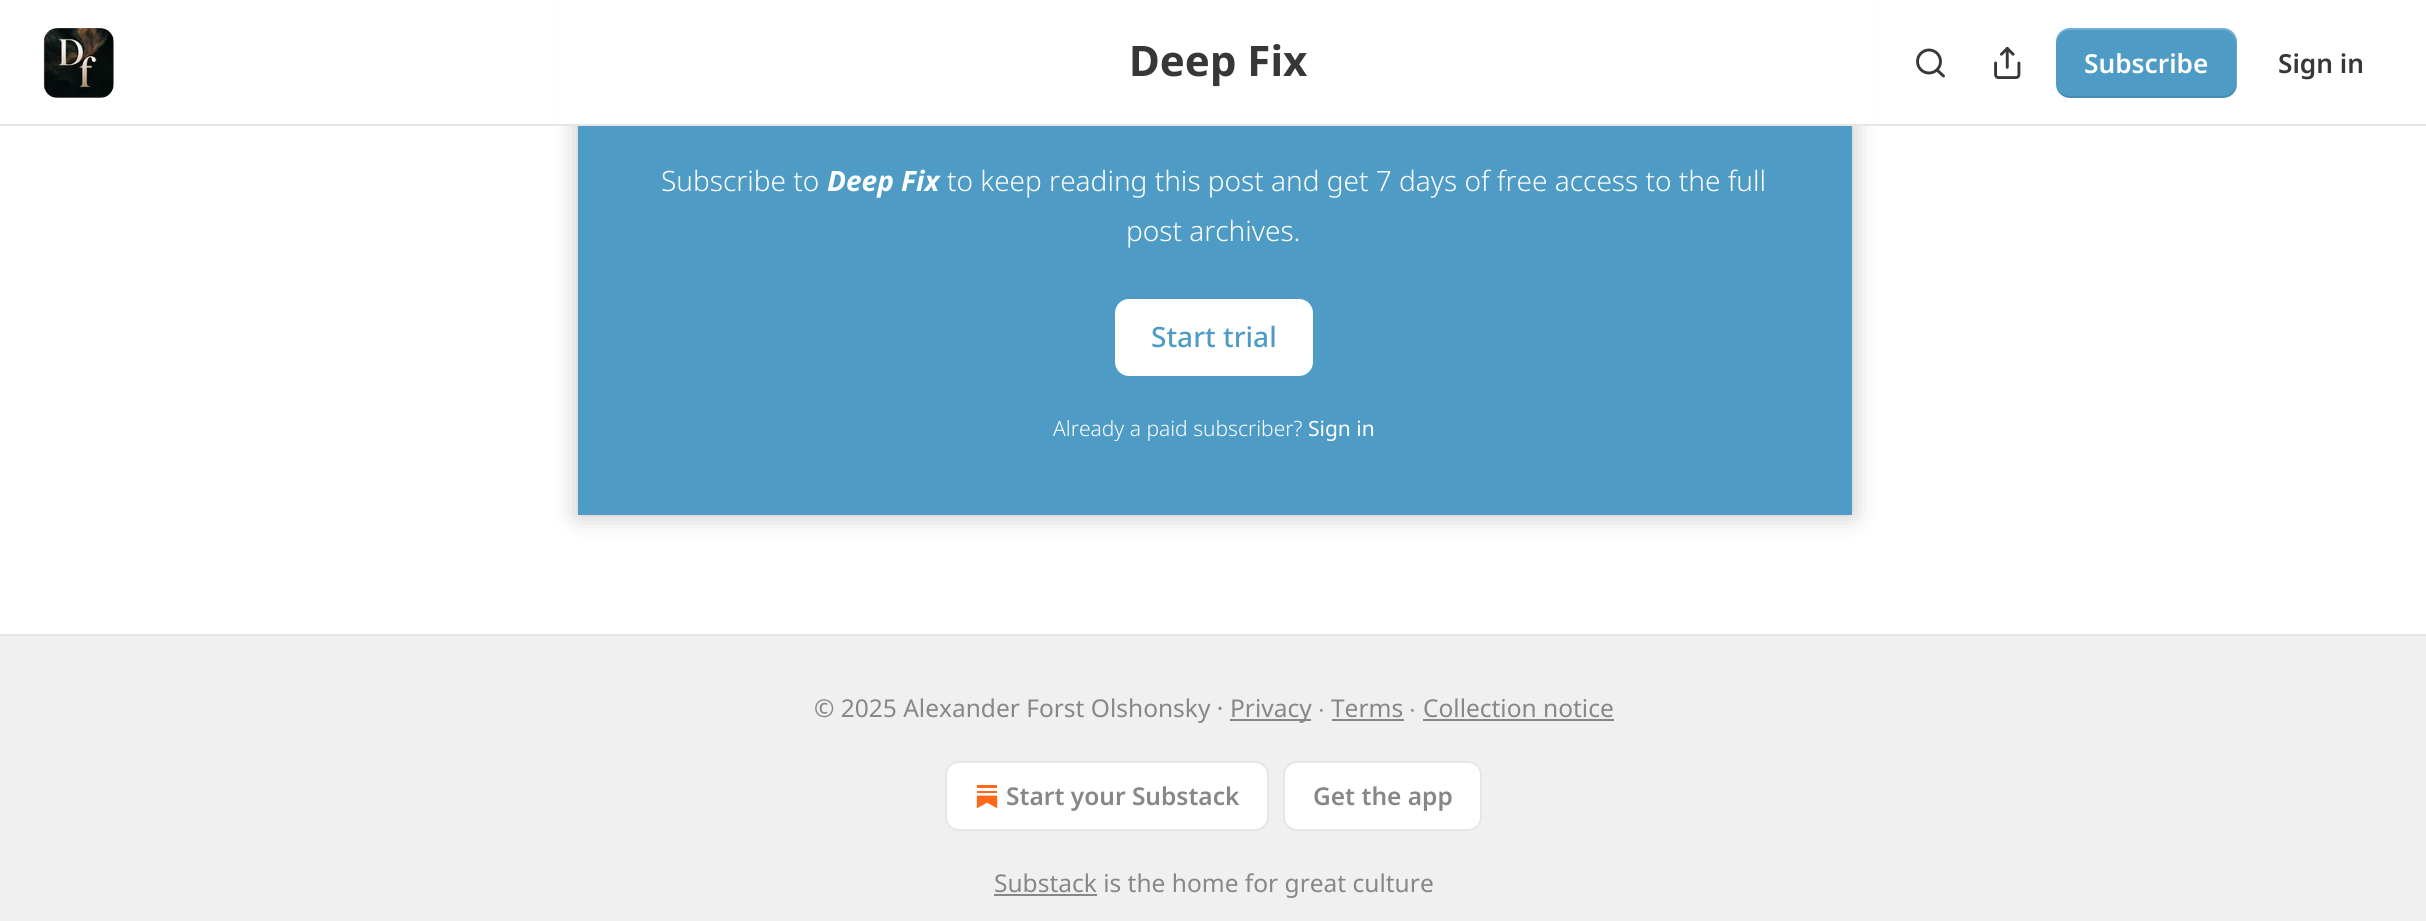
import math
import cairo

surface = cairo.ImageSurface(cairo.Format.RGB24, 2426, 921)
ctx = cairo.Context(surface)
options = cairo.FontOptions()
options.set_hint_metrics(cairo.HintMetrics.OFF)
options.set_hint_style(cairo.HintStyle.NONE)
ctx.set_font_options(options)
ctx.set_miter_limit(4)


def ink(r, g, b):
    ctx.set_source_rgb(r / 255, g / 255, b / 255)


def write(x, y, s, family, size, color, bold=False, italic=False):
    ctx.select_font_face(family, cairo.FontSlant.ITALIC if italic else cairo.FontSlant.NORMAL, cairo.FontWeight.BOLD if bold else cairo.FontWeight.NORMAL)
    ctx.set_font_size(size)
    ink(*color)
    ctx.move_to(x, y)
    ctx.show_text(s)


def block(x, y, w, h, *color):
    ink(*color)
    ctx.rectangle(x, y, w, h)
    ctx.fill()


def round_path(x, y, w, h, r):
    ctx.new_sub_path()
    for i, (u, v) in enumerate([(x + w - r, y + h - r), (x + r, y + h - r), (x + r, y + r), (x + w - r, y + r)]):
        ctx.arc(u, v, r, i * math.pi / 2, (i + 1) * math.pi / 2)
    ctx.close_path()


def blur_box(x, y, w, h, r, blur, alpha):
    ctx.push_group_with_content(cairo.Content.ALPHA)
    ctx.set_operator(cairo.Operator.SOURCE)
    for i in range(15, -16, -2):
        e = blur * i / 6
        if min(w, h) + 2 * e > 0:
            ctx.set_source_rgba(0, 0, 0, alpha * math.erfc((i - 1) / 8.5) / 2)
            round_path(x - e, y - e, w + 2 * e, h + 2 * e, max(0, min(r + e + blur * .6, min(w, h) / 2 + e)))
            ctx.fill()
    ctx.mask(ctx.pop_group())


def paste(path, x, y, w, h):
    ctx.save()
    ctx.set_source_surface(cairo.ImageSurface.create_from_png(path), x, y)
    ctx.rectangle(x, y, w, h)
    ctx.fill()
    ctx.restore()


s1 = dict(family="Noto Sans", size=42, color=(54, 55, 55), bold=True)
s2 = dict(family="Noto Sans SemiBold", size=26.25, color=(255, 255, 255))
s3 = dict(family="Noto Sans SemiBold", size=26.25, color=(54, 55, 55))
s4 = dict(family="Noto Sans Light", size=28, color=(255, 255, 255))
s5 = dict(family="Noto Sans", size=28, color=(255, 255, 255), bold=True, italic=True)
s6 = dict(family="Noto Sans Medium", size=28, color=(78, 156, 197))
s7 = dict(family="Noto Sans Light", size=21, color=(255, 255, 255))
s8 = dict(family="Noto Sans", size=21, color=(255, 255, 255))
s9 = dict(family="Noto Sans", size=24.5, color=(134, 135, 135))
s10 = dict(family="Liberation Sans", size=24.5, color=(134, 135, 135))
s11 = dict(family="Noto Sans SemiBold", size=24.5, color=(134, 135, 135))

ink(255, 255, 255)
ctx.paint()
block(578, 126, 1274, 389, 78, 156, 197)
ink(255, 255, 255)
round_path(1116, 300, 196, 75, 13)
ctx.fill_preserve()
ctx.stroke()
ctx.save()
ctx.set_fill_rule(cairo.FillRule.EVEN_ODD)
ctx.new_path()
ctx.move_to(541, 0)
ctx.line_to(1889, 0)
ctx.line_to(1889, 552)
ctx.line_to(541, 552)
ctx.close_path()
ctx.move_to(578, 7)
ctx.line_to(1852, 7)
ctx.line_to(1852, 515)
ctx.line_to(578, 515)
ctx.close_path()
ctx.clip()
ink(0, 0, 0)
blur_box(578, 7, 1274, 508, 0, 12, 0.25)
ctx.restore()
block(557, 0, 1316, 124, 255, 255, 255)
block(0, 124, 2426, 2, 230, 230, 230)
paste("pic1.png", 43, 28, 71, 70)
write(1129, 76, "Deep Fix", **s1)
ctx.new_path()
ctx.arc(1929, 61.5, 11.5, 0, 2 * math.pi)
ctx.set_line_width(2.9)
ctx.stroke()
ctx.new_path()
ctx.move_to(1943.5, 76)
ctx.line_to(1937, 70)
ctx.set_line_cap(cairo.LineCap.ROUND)
ctx.set_line_join(cairo.LineJoin.ROUND)
ctx.stroke()
paste("pic2.png", 1994, 47, 27, 32)
ink(78, 156, 197)
round_path(2056, 28, 181, 70, 14)
ctx.fill()
ctx.set_source_rgba(0, 0, 0, 0.1)
ctx.new_path()
ctx.move_to(2056, 82)
ctx.line_to(2056, 84)
ctx.curve_to(2056, 92, 2062, 98, 2070, 98)
ctx.line_to(2223, 98)
ctx.curve_to(2231, 98, 2237, 92, 2237, 84)
ctx.line_to(2237, 42)
ctx.curve_to(2237, 39, 2236, 36, 2235, 34)
ctx.curve_to(2236, 36, 2236, 38, 2236, 40)
ctx.line_to(2236, 82)
ctx.curve_to(2236, 90, 2230, 96, 2222, 96)
ctx.line_to(2070, 96)
ctx.curve_to(2063, 96, 2056, 90, 2056, 82)
ctx.close_path()
ctx.fill()
ctx.set_source_rgba(1, 1, 1, 0.2)
ctx.new_path()
ctx.move_to(2070, 30)
ctx.line_to(2222, 30)
ctx.curve_to(2230, 30, 2236, 36, 2236, 44)
ctx.line_to(2236, 86)
ctx.curve_to(2236, 88, 2236, 90, 2235, 92)
ctx.curve_to(2236, 90, 2237, 87, 2237, 84)
ctx.line_to(2237, 42)
ctx.curve_to(2237, 34, 2231, 28, 2223, 28)
ctx.line_to(2070, 28)
ctx.curve_to(2062, 28, 2056, 34, 2056, 42)
ctx.line_to(2056, 44)
ctx.curve_to(2056, 36, 2063, 30, 2070, 30)
ctx.close_path()
ctx.fill()
write(2084, 73, "Subscribe", **s2)
write(2278, 73, "Sign in", **s3)
write(661, 191, "Subscribe to", **s4)
write(827, 191, "Deep Fix", **s5)
write(947, 191, "to keep reading this post and get 7 days of free access to the full", **s4)
write(1126, 241, "post archives.", **s4)
write(1151, 347, "Start trial", **s6)
write(1053, 436, "Already a paid subscriber?", **s7)
write(1308, 436, "Sign in", **s8)
block(0, 636, 2426, 285, 240, 240, 240)
block(0, 634, 2426, 2, 230, 230, 230)
write(814, 717, "© 2025 Alexander Forst Olshonsky ·", **s9)
block(1230, 719, 81, 2, 134, 135, 135)
write(1230, 717, "Privacy", **s9)
write(1318, 717, "∙", **s10)
write(1331, 717, "Terms", **s9)
block(1332, 719, 72, 2, 134, 135, 135)
write(1409, 717, "∙", **s10)
write(1423, 717, "Collection notice", **s9)
block(1423, 719, 191, 2, 134, 135, 135)
ink(255, 255, 255)
round_path(946, 762, 322, 68, 13)
ctx.fill_preserve()
ink(230, 230, 230)
ctx.set_line_width(2)
ctx.set_line_cap(cairo.LineCap.BUTT)
ctx.set_line_join(cairo.LineJoin.MITER)
ctx.stroke()
paste("pic3.png", 976, 785, 22, 24)
write(1006, 805, "Start your Substack", **s11)
ink(255, 255, 255)
round_path(1284, 762, 197, 68, 13)
ctx.fill_preserve()
ink(230, 230, 230)
ctx.stroke()
write(1313, 805, "Get the app", **s11)
block(994, 894, 103, 2, 134, 135, 135)
write(994, 892, "Substack is the home for great culture", **s9)
surface.write_to_png("screenshot.png")
